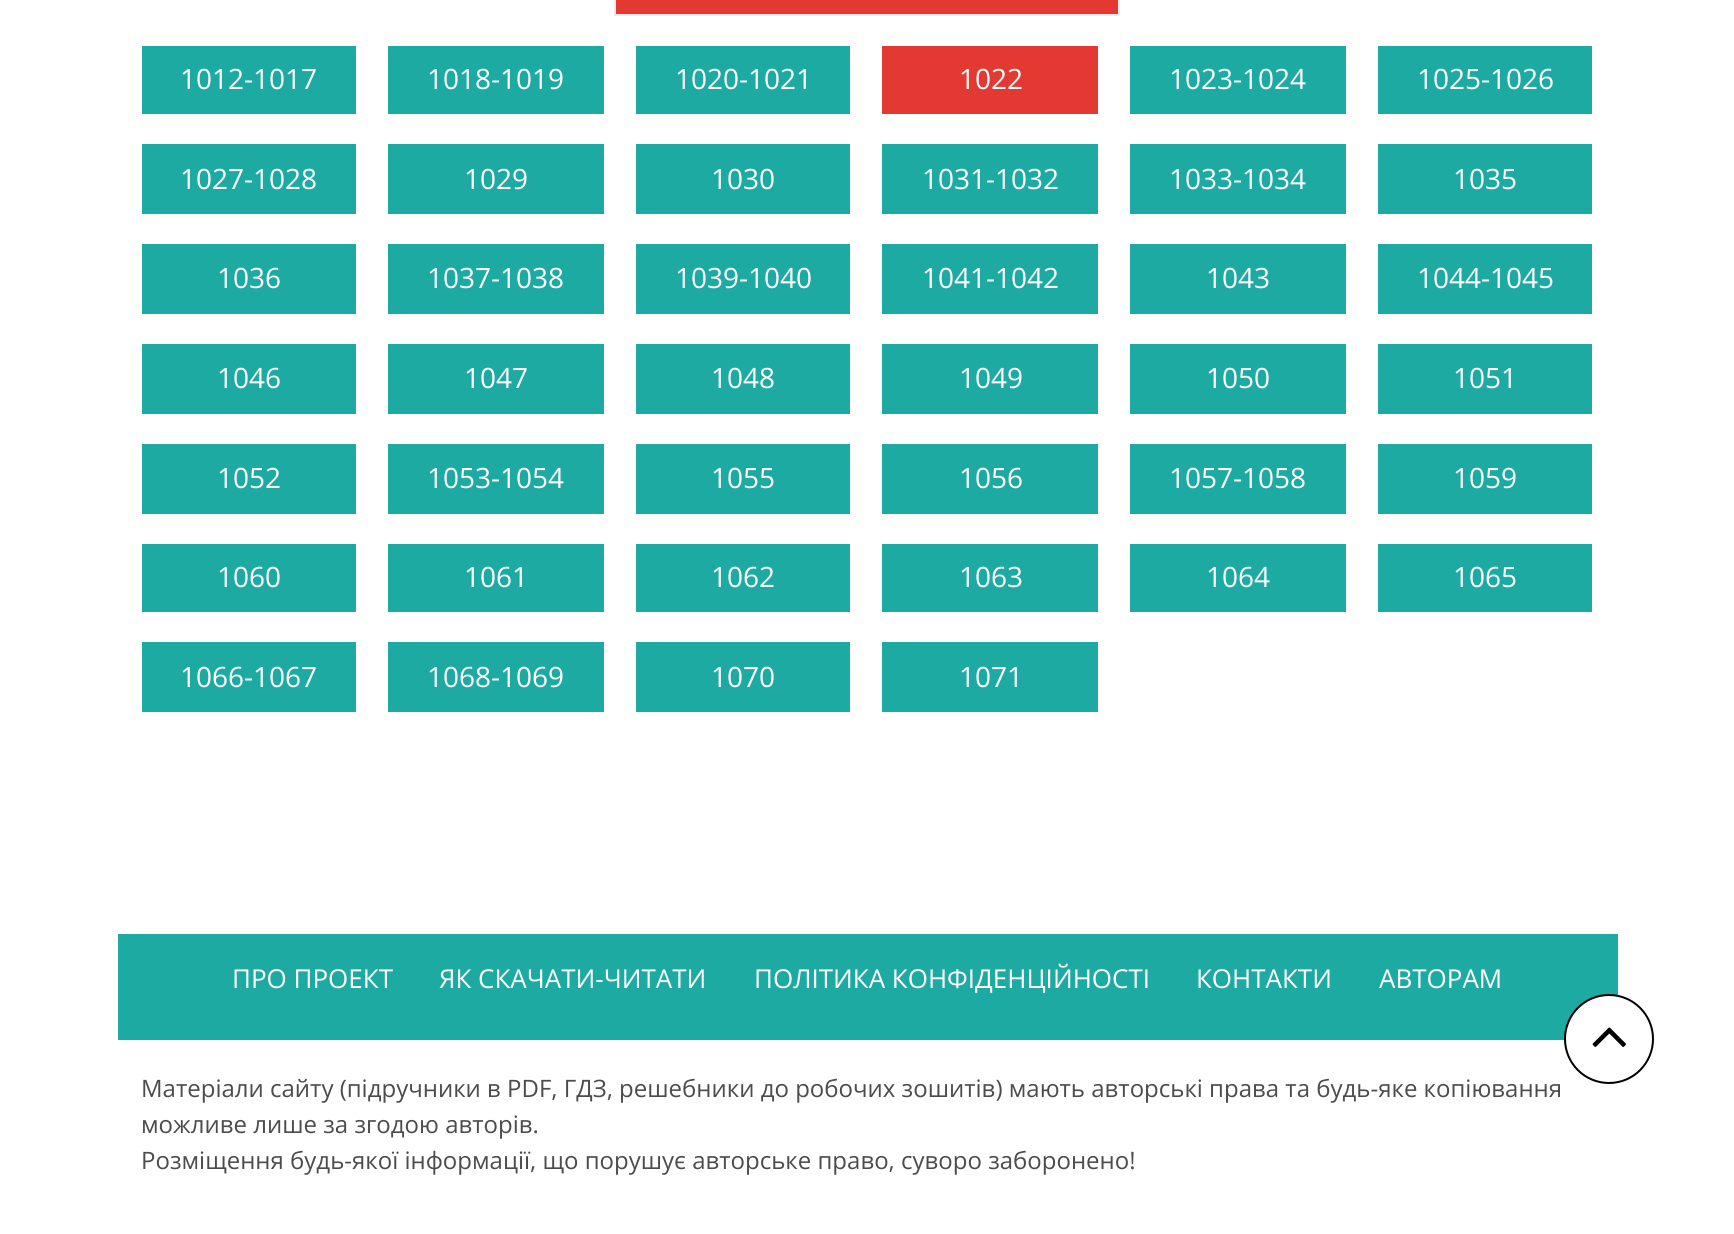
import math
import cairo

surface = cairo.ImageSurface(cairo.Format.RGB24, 1734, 1234)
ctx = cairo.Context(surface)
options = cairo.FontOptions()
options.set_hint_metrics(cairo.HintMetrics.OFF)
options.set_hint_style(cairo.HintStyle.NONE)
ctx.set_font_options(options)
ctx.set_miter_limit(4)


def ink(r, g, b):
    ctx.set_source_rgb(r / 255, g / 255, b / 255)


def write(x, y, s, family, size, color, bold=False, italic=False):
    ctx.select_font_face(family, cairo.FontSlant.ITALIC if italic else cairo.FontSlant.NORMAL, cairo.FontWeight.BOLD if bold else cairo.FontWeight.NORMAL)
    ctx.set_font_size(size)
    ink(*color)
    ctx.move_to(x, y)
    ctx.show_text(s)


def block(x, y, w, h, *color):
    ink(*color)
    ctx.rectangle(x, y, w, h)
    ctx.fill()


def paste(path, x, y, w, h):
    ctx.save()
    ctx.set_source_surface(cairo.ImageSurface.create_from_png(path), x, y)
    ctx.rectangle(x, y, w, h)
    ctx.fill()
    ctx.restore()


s1 = dict(family="Open Sans", size=28, color=(255, 255, 255))
s2 = dict(family="Open Sans", size=26, color=(255, 255, 255))
s3 = dict(family="Open Sans", size=24, color=(76, 76, 76))

ink(255, 255, 255)
ctx.paint()
ink(226, 57, 51)
ctx.rectangle(615, -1, 504, 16)
ctx.fill_preserve()
ink(236, 236, 236)
ctx.stroke()
block(142, 46, 214, 68, 29, 170, 163)
write(180, 89, "1012-1017", **s1)
block(388, 46, 216, 68, 29, 170, 163)
write(427, 89, "1018-1019", **s1)
block(636, 46, 214, 68, 29, 170, 163)
write(675, 89, "1020-1021", **s1)
block(882, 46, 216, 68, 226, 57, 51)
write(959, 89, "1022", **s1)
block(1130, 46, 216, 68, 29, 170, 163)
write(1169, 89, "1023-1024", **s1)
block(1378, 46, 214, 68, 29, 170, 163)
write(1417, 89, "1025-1026", **s1)
block(142, 144, 214, 70, 29, 170, 163)
write(180, 189, "1027-1028", **s1)
block(388, 144, 216, 70, 29, 170, 163)
write(464, 189, "1029", **s1)
block(636, 144, 214, 70, 29, 170, 163)
write(711, 189, "1030", **s1)
block(882, 144, 216, 70, 29, 170, 163)
write(922, 189, "1031-1032", **s1)
block(1130, 144, 216, 70, 29, 170, 163)
write(1169, 189, "1033-1034", **s1)
block(1378, 144, 214, 70, 29, 170, 163)
write(1453, 189, "1035", **s1)
block(142, 244, 214, 70, 29, 170, 163)
write(217, 288, "1036", **s1)
block(388, 244, 216, 70, 29, 170, 163)
write(427, 288, "1037-1038", **s1)
block(636, 244, 214, 70, 29, 170, 163)
write(675, 288, "1039-1040", **s1)
block(882, 244, 216, 70, 29, 170, 163)
write(922, 288, "1041-1042", **s1)
block(1130, 244, 216, 70, 29, 170, 163)
write(1206, 288, "1043", **s1)
block(1378, 244, 214, 70, 29, 170, 163)
write(1417, 288, "1044-1045", **s1)
block(142, 344, 214, 70, 29, 170, 163)
write(217, 388, "1046", **s1)
block(388, 344, 216, 70, 29, 170, 163)
write(464, 388, "1047", **s1)
block(636, 344, 214, 70, 29, 170, 163)
write(711, 388, "1048", **s1)
block(882, 344, 216, 70, 29, 170, 163)
write(959, 388, "1049", **s1)
block(1130, 344, 216, 70, 29, 170, 163)
write(1206, 388, "1050", **s1)
block(1378, 344, 214, 70, 29, 170, 163)
write(1453, 388, "1051", **s1)
block(142, 444, 214, 70, 29, 170, 163)
write(217, 488, "1052", **s1)
block(388, 444, 216, 70, 29, 170, 163)
write(427, 488, "1053-1054", **s1)
block(636, 444, 214, 70, 29, 170, 163)
write(711, 488, "1055", **s1)
block(882, 444, 216, 70, 29, 170, 163)
write(959, 488, "1056", **s1)
block(1130, 444, 216, 70, 29, 170, 163)
write(1169, 488, "1057-1058", **s1)
block(1378, 444, 214, 70, 29, 170, 163)
write(1453, 488, "1059", **s1)
block(142, 544, 214, 68, 29, 170, 163)
write(217, 587, "1060", **s1)
block(388, 544, 216, 68, 29, 170, 163)
write(464, 587, "1061", **s1)
block(636, 544, 214, 68, 29, 170, 163)
write(711, 587, "1062", **s1)
block(882, 544, 216, 68, 29, 170, 163)
write(959, 587, "1063", **s1)
block(1130, 544, 216, 68, 29, 170, 163)
write(1206, 587, "1064", **s1)
block(1378, 544, 214, 68, 29, 170, 163)
write(1453, 587, "1065", **s1)
block(142, 642, 214, 70, 29, 170, 163)
write(180, 687, "1066-1067", **s1)
block(388, 642, 216, 70, 29, 170, 163)
write(427, 687, "1068-1069", **s1)
block(636, 642, 214, 70, 29, 170, 163)
write(711, 687, "1070", **s1)
block(882, 642, 216, 70, 29, 170, 163)
write(959, 687, "1071", **s1)
block(118, 934, 1500, 106, 29, 170, 163)
write(232, 988, "ПРО ПРОЕКТ", **s2)
write(439, 988, "ЯК СКАЧАТИ-ЧИТАТИ", **s2)
write(754, 988, "ПОЛІТИКА КОНФІДЕНЦІЙНОСТІ", **s2)
write(1196, 988, "КОНТАКТИ", **s2)
write(1379, 988, "АВТОРАМ", **s2)
write(141, 1097, "Матеріали сайту (підручники в PDF, ГДЗ, решебники до робочих зошитів) мають авторські права та будь-яке копіювання", **s3)
write(141, 1133, "можливе лише за згодою авторів.", **s3)
write(141, 1169, "Розміщення будь-якої інформації, що порушує авторське право, суворо заборонено!", **s3)
ink(255, 255, 255)
ctx.new_path()
ctx.arc(1609, 1039, 44, 0, 2 * math.pi)
ctx.fill_preserve()
ink(0, 0, 0)
ctx.stroke()
paste("pic1.png", 1592, 1027, 34, 20)
surface.write_to_png("screenshot.png")
